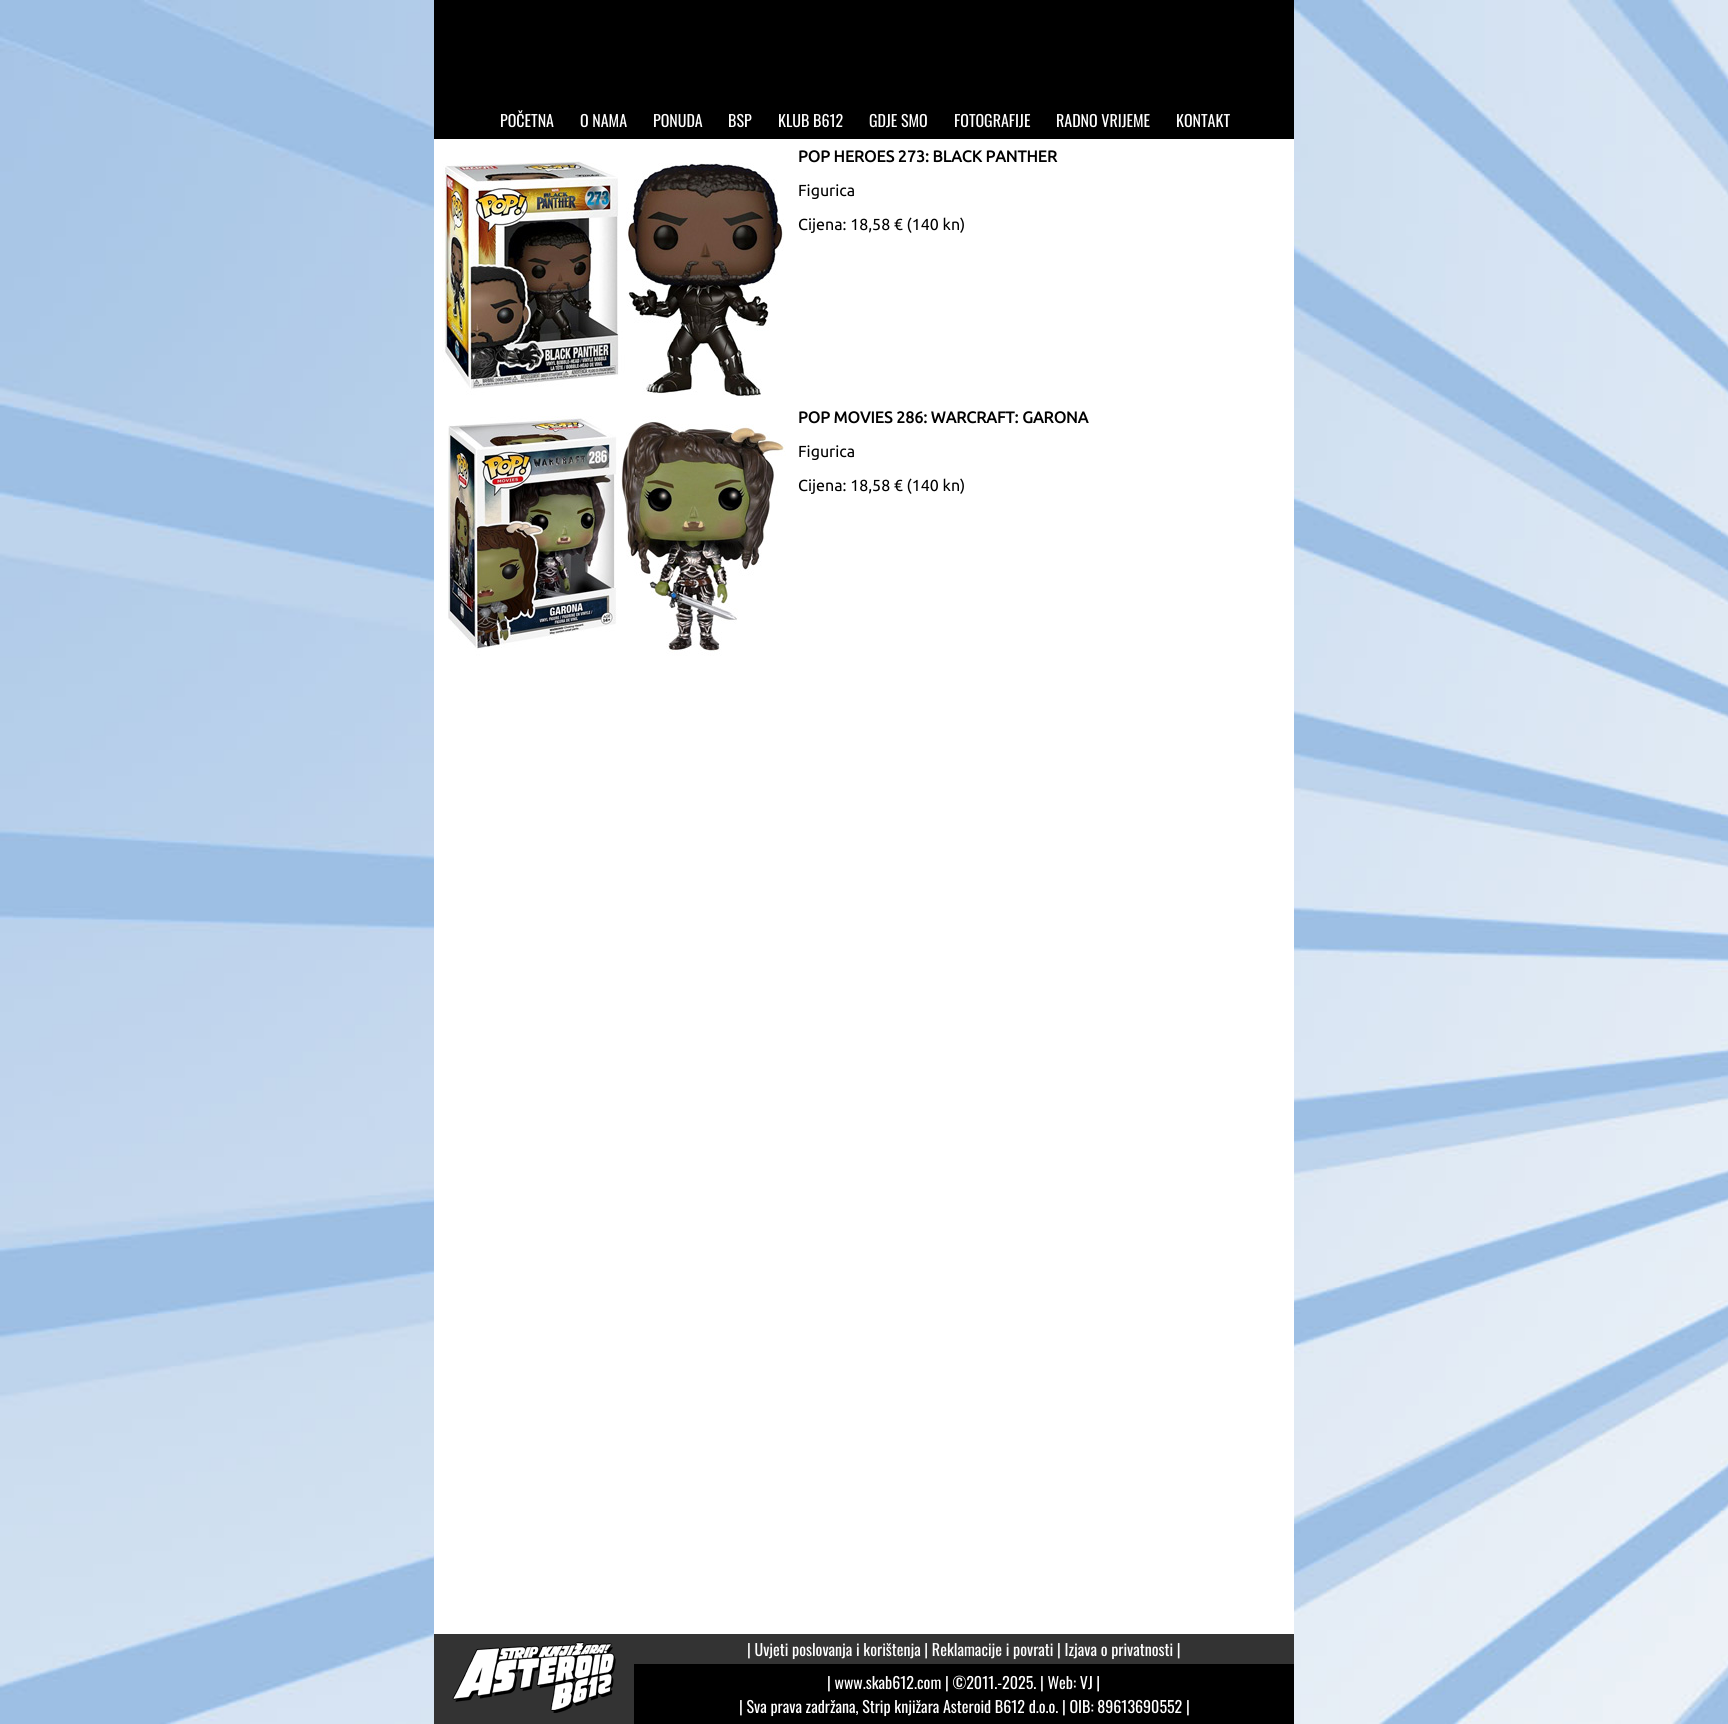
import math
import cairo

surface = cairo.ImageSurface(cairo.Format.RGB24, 1728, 1724)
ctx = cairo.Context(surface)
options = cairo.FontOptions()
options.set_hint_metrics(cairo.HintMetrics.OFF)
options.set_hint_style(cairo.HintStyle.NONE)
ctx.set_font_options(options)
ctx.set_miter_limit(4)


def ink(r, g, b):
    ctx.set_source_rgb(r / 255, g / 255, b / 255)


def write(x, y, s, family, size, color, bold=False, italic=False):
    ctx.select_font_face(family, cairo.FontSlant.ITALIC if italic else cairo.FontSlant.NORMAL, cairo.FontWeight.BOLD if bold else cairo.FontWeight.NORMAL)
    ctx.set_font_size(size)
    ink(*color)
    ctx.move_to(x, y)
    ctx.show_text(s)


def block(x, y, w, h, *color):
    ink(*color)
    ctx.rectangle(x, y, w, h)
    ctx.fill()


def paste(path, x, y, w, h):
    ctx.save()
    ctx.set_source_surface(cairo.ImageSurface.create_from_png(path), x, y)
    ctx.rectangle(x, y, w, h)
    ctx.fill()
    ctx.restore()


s1 = dict(family="Oswald", size=16, color=(255, 255, 255))
s2 = dict(family="Ubuntu", size=16, color=(0, 0, 0), bold=True)
s3 = dict(family="Ubuntu", size=16, color=(0, 0, 0))

ink(255, 255, 255)
ctx.paint()
paste("pic1.png", 0, 0, 1728, 1724)
block(434, 0, 860, 139, 0, 0, 0)
write(500, 127, "POČETNA", **s1)
write(580, 127, "O NAMA", **s1)
write(653, 127, "PONUDA", **s1)
write(728, 127, "BSP", **s1)
write(778, 127, "KLUB B612", **s1)
write(869, 127, "GDJE SMO", **s1)
write(954, 127, "FOTOGRAFIJE", **s1)
write(1056, 127, "RADNO VRIJEME", **s1)
write(1176, 127, "KONTAKT", **s1)
block(434, 139, 860, 1495, 255, 255, 255)
paste("pic2.png", 442, 161, 342, 235)
write(798, 162, "POP HEROES 273: BLACK PANTHER", **s2)
write(798, 196, "Figurica", **s3)
write(798, 230, "Cijena: 18,58 € (140 kn)", **s3)
paste("pic3.png", 448, 416, 338, 240)
write(798, 423, "POP MOVIES 286: WARCRAFT: GARONA", **s2)
write(798, 457, "Figurica", **s3)
write(798, 491, "Cijena: 18,58 € (140 kn)", **s3)
block(434, 1634, 200, 90, 51, 51, 51)
paste("pic4.png", 452, 1642, 164, 71)
block(634, 1634, 660, 30, 51, 51, 51)
write(747, 1656, "| Uvjeti poslovanja i korištenja | Reklamacije i povrati | Izjava o privatnosti |", **s1)
block(634, 1664, 660, 60, 0, 0, 0)
write(827, 1689, "| www.skab612.com | ©2011.-2025. | Web: VJ |", **s1)
write(739, 1713, "| Sva prava zadržana, Strip knjižara Asteroid B612 d.o.o. | OIB: 89613690552 |", **s1)
surface.write_to_png("screenshot.png")
